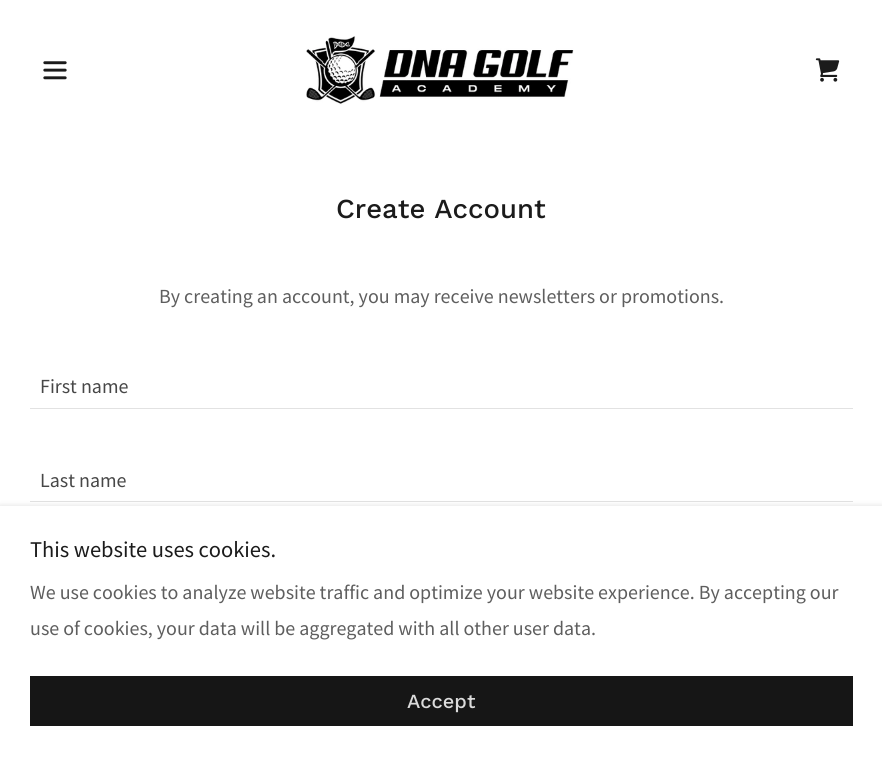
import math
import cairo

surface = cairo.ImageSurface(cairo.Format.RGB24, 882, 761)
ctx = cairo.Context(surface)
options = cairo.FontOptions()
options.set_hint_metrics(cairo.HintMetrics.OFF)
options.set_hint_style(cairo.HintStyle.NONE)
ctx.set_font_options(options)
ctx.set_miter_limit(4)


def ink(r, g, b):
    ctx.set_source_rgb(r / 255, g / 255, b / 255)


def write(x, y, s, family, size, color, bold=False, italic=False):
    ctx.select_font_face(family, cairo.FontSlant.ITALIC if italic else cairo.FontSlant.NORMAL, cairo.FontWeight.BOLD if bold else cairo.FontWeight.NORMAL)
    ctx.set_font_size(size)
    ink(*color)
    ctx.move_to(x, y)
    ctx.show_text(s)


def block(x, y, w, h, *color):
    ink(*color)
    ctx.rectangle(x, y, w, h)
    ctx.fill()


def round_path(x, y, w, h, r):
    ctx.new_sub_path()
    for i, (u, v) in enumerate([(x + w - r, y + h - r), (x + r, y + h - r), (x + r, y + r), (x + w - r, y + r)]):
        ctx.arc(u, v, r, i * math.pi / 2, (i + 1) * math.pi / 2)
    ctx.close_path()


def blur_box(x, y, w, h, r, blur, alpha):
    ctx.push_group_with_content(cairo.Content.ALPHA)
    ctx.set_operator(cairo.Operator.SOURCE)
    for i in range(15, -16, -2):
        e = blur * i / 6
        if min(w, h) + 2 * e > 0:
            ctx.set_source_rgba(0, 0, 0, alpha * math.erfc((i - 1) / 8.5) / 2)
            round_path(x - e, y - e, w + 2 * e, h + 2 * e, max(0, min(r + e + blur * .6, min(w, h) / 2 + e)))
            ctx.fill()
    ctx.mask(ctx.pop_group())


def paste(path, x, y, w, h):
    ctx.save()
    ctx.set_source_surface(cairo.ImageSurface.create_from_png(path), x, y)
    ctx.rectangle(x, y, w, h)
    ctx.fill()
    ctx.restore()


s1 = dict(family="Work Sans Medium", size=27.5, color=(27, 27, 27))
s2 = dict(family="Source Sans Pro", size=20, color=(94, 94, 94))
s3 = dict(family="Source Sans Pro", size=20, color=(71, 71, 71))
s4 = dict(family="Source Sans Pro", size=22.5, color=(27, 27, 27))
s5 = dict(family="Work Sans Medium", size=20, color=(219, 219, 219))

ink(255, 255, 255)
ctx.paint()
paste("pic1.png", 43, 61, 24, 19)
paste("pic2.png", 306, 36, 268, 69)
paste("pic3.png", 815, 58, 25, 24)
write(336, 218, "Create Account", **s1)
write(159, 303, "By creating an account, you may receive newsletters or promotions.", **s2)
block(30, 408, 823, 1, 226, 226, 226)
write(40, 393, "First name", **s3)
block(30, 501, 823, 1, 226, 226, 226)
write(40, 487, "Last name", **s3)
ink(0, 0, 0)
blur_box(0, 509, 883, 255, 0, 4, 0.3)
block(0, 506, 882, 255, 255, 255, 255)
write(30, 557, "This website uses cookies.", **s4)
write(30, 599, "We use cookies to analyze website traffic and optimize your website experience. By accepting our", **s2)
write(30, 635, "use of cookies, your data will be aggregated with all other user data.", **s2)
block(30, 676, 823, 50, 22, 22, 22)
write(407, 708, "Accept", **s5)
surface.write_to_png("screenshot.png")
